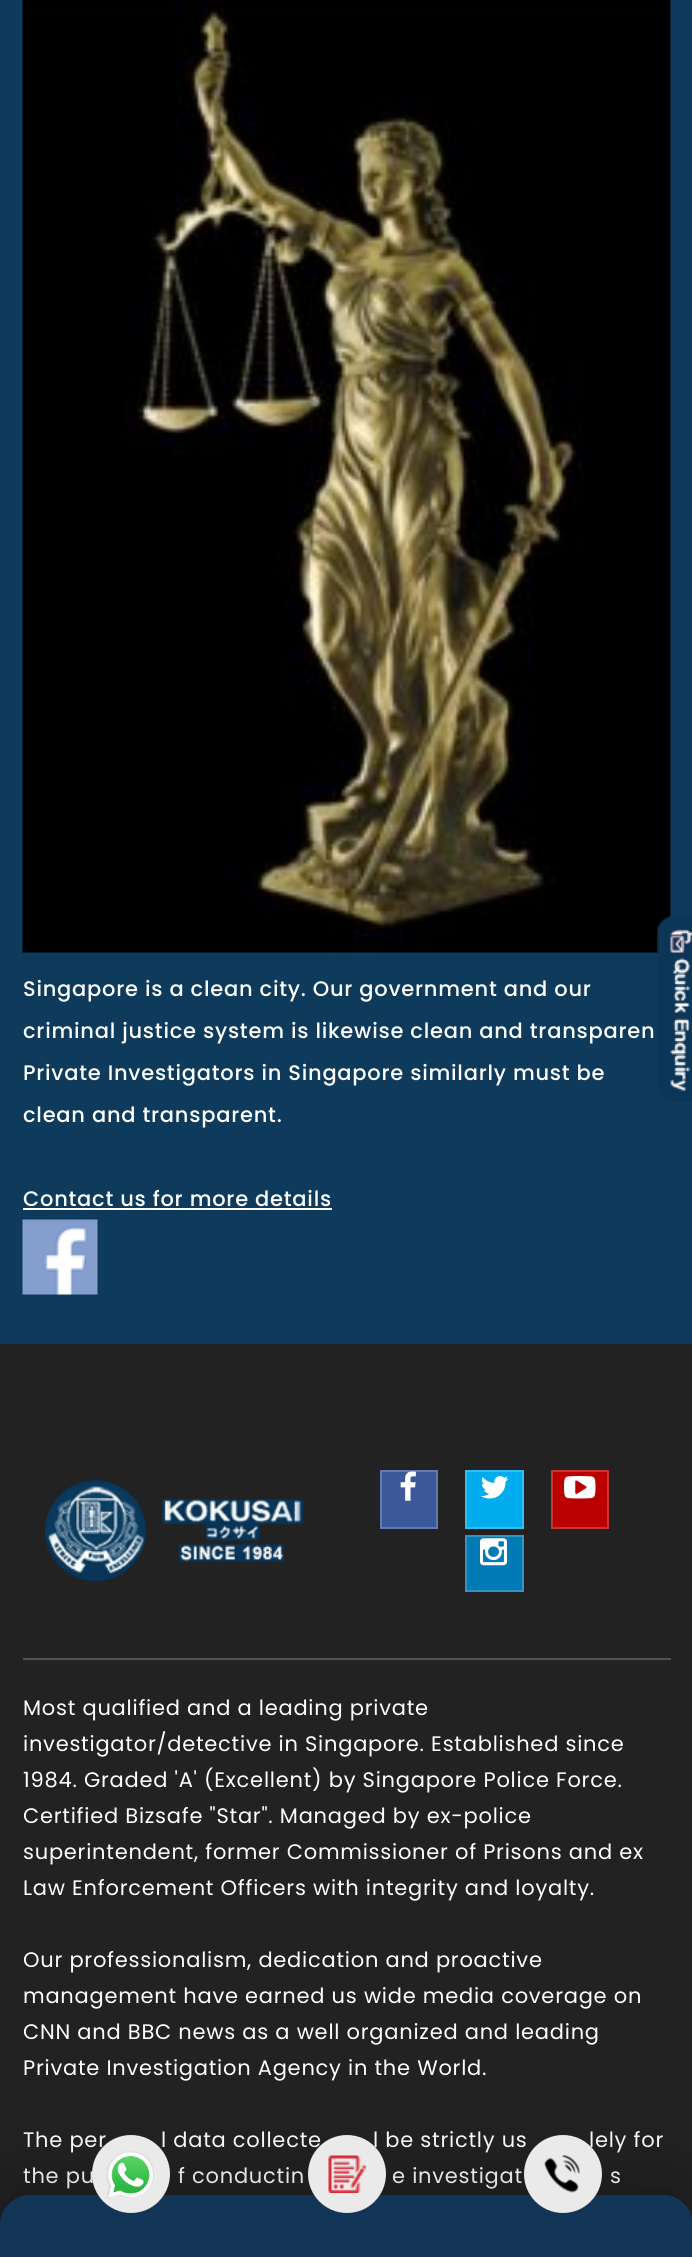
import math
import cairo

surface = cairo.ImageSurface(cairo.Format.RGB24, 692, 2257)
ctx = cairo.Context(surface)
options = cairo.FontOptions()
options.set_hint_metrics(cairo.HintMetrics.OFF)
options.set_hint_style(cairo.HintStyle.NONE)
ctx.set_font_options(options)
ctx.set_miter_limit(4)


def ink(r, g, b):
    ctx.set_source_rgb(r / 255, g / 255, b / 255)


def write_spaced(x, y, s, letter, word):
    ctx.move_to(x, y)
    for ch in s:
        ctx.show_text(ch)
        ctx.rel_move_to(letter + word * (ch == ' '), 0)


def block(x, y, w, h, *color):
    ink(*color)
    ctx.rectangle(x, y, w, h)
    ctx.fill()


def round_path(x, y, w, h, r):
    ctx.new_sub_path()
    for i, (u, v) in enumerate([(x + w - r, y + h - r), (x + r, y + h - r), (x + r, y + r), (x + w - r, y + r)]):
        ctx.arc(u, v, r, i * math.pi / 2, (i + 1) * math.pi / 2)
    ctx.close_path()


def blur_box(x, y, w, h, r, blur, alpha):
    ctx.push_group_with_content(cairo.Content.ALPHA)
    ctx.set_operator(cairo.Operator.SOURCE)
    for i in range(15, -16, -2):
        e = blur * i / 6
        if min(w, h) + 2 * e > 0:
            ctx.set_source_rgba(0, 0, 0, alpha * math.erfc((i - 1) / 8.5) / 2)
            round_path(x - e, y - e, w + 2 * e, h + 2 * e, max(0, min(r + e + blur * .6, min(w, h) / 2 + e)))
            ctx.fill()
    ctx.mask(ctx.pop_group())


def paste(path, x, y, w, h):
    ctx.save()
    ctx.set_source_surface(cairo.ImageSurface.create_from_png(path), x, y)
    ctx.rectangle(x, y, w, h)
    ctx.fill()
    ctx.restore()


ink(14, 59, 92)
ctx.paint()
paste("pic1.png", 22, 0, 649, 953)
ctx.select_font_face("Poppins Medium")
ctx.set_font_size(21)
ink(255, 255, 255)
write_spaced(23, 996, "Singapore is a clean city. Our government and our", 0.75, 0)
write_spaced(23, 1038, "criminal justice system is likewise clean and transparen", 0.75, 0)
write_spaced(23, 1080, "Private Investigators in Singapore similarly must be", 0.75, 0)
write_spaced(23, 1122, "clean and transparent.", 0.75, 0)
write_spaced(23, 1206, "Contact us for more details", 0.75, 0)
block(23, 1208, 309, 2, 255, 255, 255)
paste("pic2.png", 22, 1219, 76, 76)
block(0, 1344, 692, 881, 34, 34, 34)
paste("pic3.png", 45, 1480, 258, 101)
ink(59, 89, 152)
ctx.rectangle(381, 1471, 56, 57)
ctx.fill_preserve()
ink(98, 122, 173)
ctx.stroke()
paste("pic4.png", 400, 1471, 16, 30)
ink(0, 172, 237)
ctx.rectangle(466, 1471, 57, 57)
ctx.fill_preserve()
ink(51, 189, 241)
ctx.stroke()
paste("pic5.png", 481, 1476, 28, 23)
ink(187, 0, 0)
ctx.rectangle(552, 1471, 56, 57)
ctx.fill_preserve()
ink(201, 51, 51)
ctx.stroke()
paste("pic6.png", 564, 1476, 32, 23)
ink(0, 123, 182)
ctx.rectangle(466, 1536, 57, 55)
ctx.fill_preserve()
ink(51, 149, 197)
ctx.stroke()
paste("pic7.png", 480, 1538, 27, 28)
block(23, 1658, 648, 2, 82, 82, 82)
ctx.select_font_face("Poppins")
ink(255, 255, 255)
write_spaced(23, 1715, "Most qualified and a leading private", 0.75, 0)
write_spaced(23, 1751, "investigator/detective in Singapore. Established since", 0.75, 0)
write_spaced(23, 1787, "1984. Graded 'A' (Excellent) by Singapore Police Force.", 0.75, 0)
write_spaced(23, 1823, "Certified Bizsafe \"Star\". Managed by ex-police", 0.75, 0)
write_spaced(23, 1859, "superintendent, former Commissioner of Prisons and ex", 0.75, 0)
write_spaced(23, 1895, "Law Enforcement Officers with integrity and loyalty.", 0.75, 0)
write_spaced(23, 1967, "Our professionalism, dedication and proactive", 0.75, 0)
write_spaced(23, 2003, "management have earned us wide media coverage on", 0.75, 0)
write_spaced(23, 2039, "CNN and BBC news as a well organized and leading", 0.75, 0)
write_spaced(23, 2075, "Private Investigation Agency in the World.", 0.75, 0)
write_spaced(23, 2147, "The per", 0.75, 0)
write_spaced(161, 2147, "l data collecte", 0.75, 0)
write_spaced(373, 2147, "l be strictly us", 0.75, 0)
write_spaced(589, 2147, "lely for", 0.75, 0)
write_spaced(23, 2183, "the pu", 0.75, 0)
write_spaced(178, 2183, "f conductin", 0.75, 0)
write_spaced(392, 2183, "e investigat", 0.75, 0)
write_spaced(610, 2183, "s", 0.75, 0)
paste("pic8.png", 657, 915, 35, 187)
ink(0, 0, 0)
blur_box(0, 2180, 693, 63, 30, 37.5, 0.23)
blur_box(636, 2205, 35, 35, 17.5, 12, 0.24)
ink(19, 53, 87)
ctx.new_path()
ctx.move_to(30, 2195)
ctx.line_to(663, 2195)
ctx.curve_to(679.5, 2195, 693, 2208.5, 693, 2225)
ctx.line_to(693, 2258)
ctx.line_to(0, 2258)
ctx.line_to(0, 2225)
ctx.curve_to(0, 2208.5, 13.5, 2195, 30, 2195)
ctx.close_path()
ctx.fill()
ink(234, 234, 234)
ctx.arc(131, 2174, 39, 0, 2 * math.pi)
ctx.fill()
paste("pic9.png", 107, 2151, 47, 47)
ctx.arc(347, 2174, 39, 0, 2 * math.pi)
ctx.fill()
paste("pic10.png", 328, 2155, 38, 38)
ctx.arc(563, 2174, 39, 0, 2 * math.pi)
ctx.fill()
paste("pic11.png", 544, 2155, 37, 38)
surface.write_to_png("screenshot.png")
